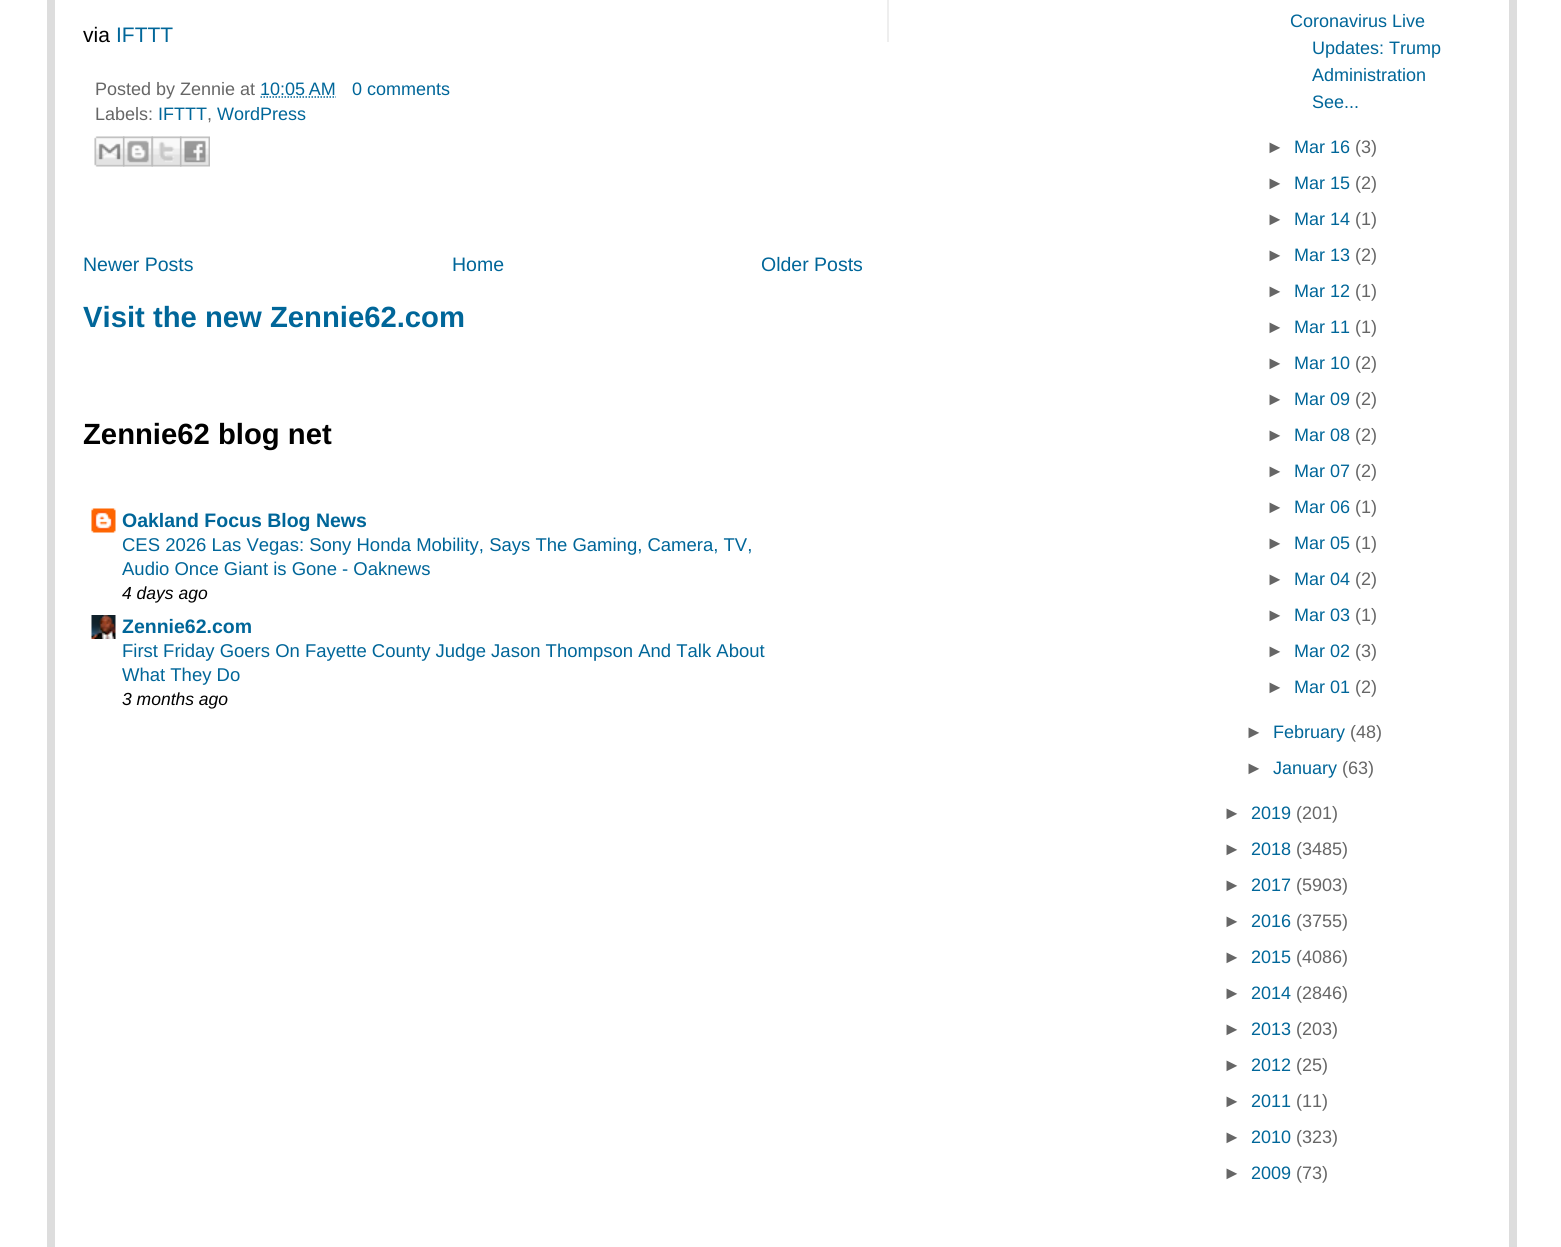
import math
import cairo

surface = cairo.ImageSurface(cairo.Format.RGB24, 1561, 1247)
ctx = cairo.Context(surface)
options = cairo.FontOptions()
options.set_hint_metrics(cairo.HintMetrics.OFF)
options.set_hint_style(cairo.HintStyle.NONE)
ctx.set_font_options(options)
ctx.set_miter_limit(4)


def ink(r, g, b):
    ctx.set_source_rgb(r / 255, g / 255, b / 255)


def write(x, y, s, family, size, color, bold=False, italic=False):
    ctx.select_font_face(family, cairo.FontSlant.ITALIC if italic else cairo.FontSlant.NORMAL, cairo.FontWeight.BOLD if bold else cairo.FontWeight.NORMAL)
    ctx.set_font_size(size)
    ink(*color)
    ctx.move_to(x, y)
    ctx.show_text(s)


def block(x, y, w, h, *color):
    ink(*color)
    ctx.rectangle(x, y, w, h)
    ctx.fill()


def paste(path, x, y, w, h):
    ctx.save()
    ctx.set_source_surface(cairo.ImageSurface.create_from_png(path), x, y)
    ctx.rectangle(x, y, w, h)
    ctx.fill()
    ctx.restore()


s1 = dict(family="Liberation Sans", size=21, color=(0, 0, 0))
s2 = dict(family="Liberation Sans", size=21, color=(0, 102, 153))
s3 = dict(family="Liberation Sans", size=18, color=(102, 102, 102))
s4 = dict(family="Liberation Sans", size=18, color=(0, 102, 153))
s5 = dict(family="Liberation Sans", size=19.5, color=(0, 102, 153))
s6 = dict(family="Liberation Sans", size=29.25, color=(0, 102, 153), bold=True)
s7 = dict(family="Liberation Sans", size=29.25, color=(0, 0, 0), bold=True)
s8 = dict(family="Liberation Sans", size=19.5, color=(0, 102, 153), bold=True)
s9 = dict(family="Liberation Sans", size=18.5, color=(0, 102, 153))
s10 = dict(family="Liberation Sans", size=17.5, color=(0, 0, 0), italic=True)

ink(255, 255, 255)
ctx.paint()
ctx.rectangle(51, -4, 1462, 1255)
ink(221, 221, 221)
ctx.set_line_width(8)
ctx.stroke()
write(83, 42, "via", **s1)
write(116, 42, "IFTTT", **s2)
write(95, 95, "Posted by Zennie at", **s3)
write(260, 95, "10:05 AM", **s4)
ctx.new_path()
ctx.move_to(260.5, 97)
ctx.line_to(336, 97)
ctx.set_line_width(1.5)
ctx.set_dash([1.5, 1.5])
ctx.stroke()
write(352, 95, "0 comments", **s4)
write(95, 120, "Labels:", **s3)
write(158, 120, "IFTTT", **s4)
write(217, 120, "WordPress", **s4)
write(207, 120, ",", **s3)
paste("pic1.png", 94, 136, 31, 31)
paste("pic2.png", 123, 136, 30, 31)
paste("pic3.png", 151, 136, 31, 31)
paste("pic4.png", 180, 136, 30, 31)
write(83, 271, "Newer Posts", **s5)
write(452, 271, "Home", **s5)
write(761, 271, "Older Posts", **s5)
write(83, 327, "Visit the new Zennie62.com", **s6)
write(83, 444, "Zennie62 blog net", **s7)
paste("pic5.png", 91, 508, 25, 25)
write(122, 527, "Oakland Focus Blog News", **s8)
write(122, 551, "CES 2026 Las Vegas: Sony Honda Mobility, Says The Gaming, Camera, TV,", **s9)
write(122, 575, "Audio Once Giant is Gone - Oaknews", **s9)
write(122, 599, "4 days ago", **s10)
paste("pic6.png", 91, 615, 25, 24)
write(122, 633, "Zennie62.com", **s8)
write(122, 657, "First Friday Goers On Fayette County Judge Jason Thompson And Talk About", **s9)
write(122, 681, "What They Do", **s9)
write(122, 705, "3 months ago", **s10)
block(887, 0, 2, 42, 238, 238, 238)
write(1290, 27, "Coronavirus Live", **s4)
write(1312, 54, "Updates: Trump", **s4)
write(1312, 81, "Administration", **s4)
write(1312, 108, "See...", **s4)
write(1266, 153, "►", **s3)
write(1294, 153, "Mar 16", **s4)
write(1355, 153, "(3)", **s3)
write(1266, 189, "►", **s3)
write(1294, 189, "Mar 15", **s4)
write(1355, 189, "(2)", **s3)
write(1266, 225, "►", **s3)
write(1294, 225, "Mar 14", **s4)
write(1355, 225, "(1)", **s3)
write(1266, 261, "►", **s3)
write(1294, 261, "Mar 13", **s4)
write(1355, 261, "(2)", **s3)
write(1266, 297, "►", **s3)
write(1294, 297, "Mar 12", **s4)
write(1355, 297, "(1)", **s3)
write(1266, 333, "►", **s3)
write(1294, 333, "Mar 11", **s4)
write(1355, 333, "(1)", **s3)
write(1266, 369, "►", **s3)
write(1294, 369, "Mar 10", **s4)
write(1355, 369, "(2)", **s3)
write(1266, 405, "►", **s3)
write(1294, 405, "Mar 09", **s4)
write(1355, 405, "(2)", **s3)
write(1266, 441, "►", **s3)
write(1294, 441, "Mar 08", **s4)
write(1355, 441, "(2)", **s3)
write(1266, 477, "►", **s3)
write(1294, 477, "Mar 07", **s4)
write(1355, 477, "(2)", **s3)
write(1266, 513, "►", **s3)
write(1294, 513, "Mar 06", **s4)
write(1355, 513, "(1)", **s3)
write(1266, 549, "►", **s3)
write(1294, 549, "Mar 05", **s4)
write(1355, 549, "(1)", **s3)
write(1266, 585, "►", **s3)
write(1294, 585, "Mar 04", **s4)
write(1355, 585, "(2)", **s3)
write(1266, 621, "►", **s3)
write(1294, 621, "Mar 03", **s4)
write(1355, 621, "(1)", **s3)
write(1266, 657, "►", **s3)
write(1294, 657, "Mar 02", **s4)
write(1355, 657, "(3)", **s3)
write(1266, 693, "►", **s3)
write(1294, 693, "Mar 01", **s4)
write(1355, 693, "(2)", **s3)
write(1245, 738, "►", **s3)
write(1273, 738, "February", **s4)
write(1350, 738, "(48)", **s3)
write(1245, 774, "►", **s3)
write(1273, 774, "January", **s4)
write(1342, 774, "(63)", **s3)
write(1223, 819, "►", **s3)
write(1251, 819, "2019", **s4)
write(1296, 819, "(201)", **s3)
write(1223, 855, "►", **s3)
write(1251, 855, "2018", **s4)
write(1296, 855, "(3485)", **s3)
write(1223, 891, "►", **s3)
write(1251, 891, "2017", **s4)
write(1296, 891, "(5903)", **s3)
write(1223, 927, "►", **s3)
write(1251, 927, "2016", **s4)
write(1296, 927, "(3755)", **s3)
write(1223, 963, "►", **s3)
write(1251, 963, "2015", **s4)
write(1296, 963, "(4086)", **s3)
write(1223, 999, "►", **s3)
write(1251, 999, "2014", **s4)
write(1296, 999, "(2846)", **s3)
write(1223, 1035, "►", **s3)
write(1251, 1035, "2013", **s4)
write(1296, 1035, "(203)", **s3)
write(1223, 1071, "►", **s3)
write(1251, 1071, "2012", **s4)
write(1296, 1071, "(25)", **s3)
write(1223, 1107, "►", **s3)
write(1251, 1107, "2011", **s4)
write(1296, 1107, "(11)", **s3)
write(1223, 1143, "►", **s3)
write(1251, 1143, "2010", **s4)
write(1296, 1143, "(323)", **s3)
write(1223, 1179, "►", **s3)
write(1251, 1179, "2009", **s4)
write(1296, 1179, "(73)", **s3)
surface.write_to_png("screenshot.png")
